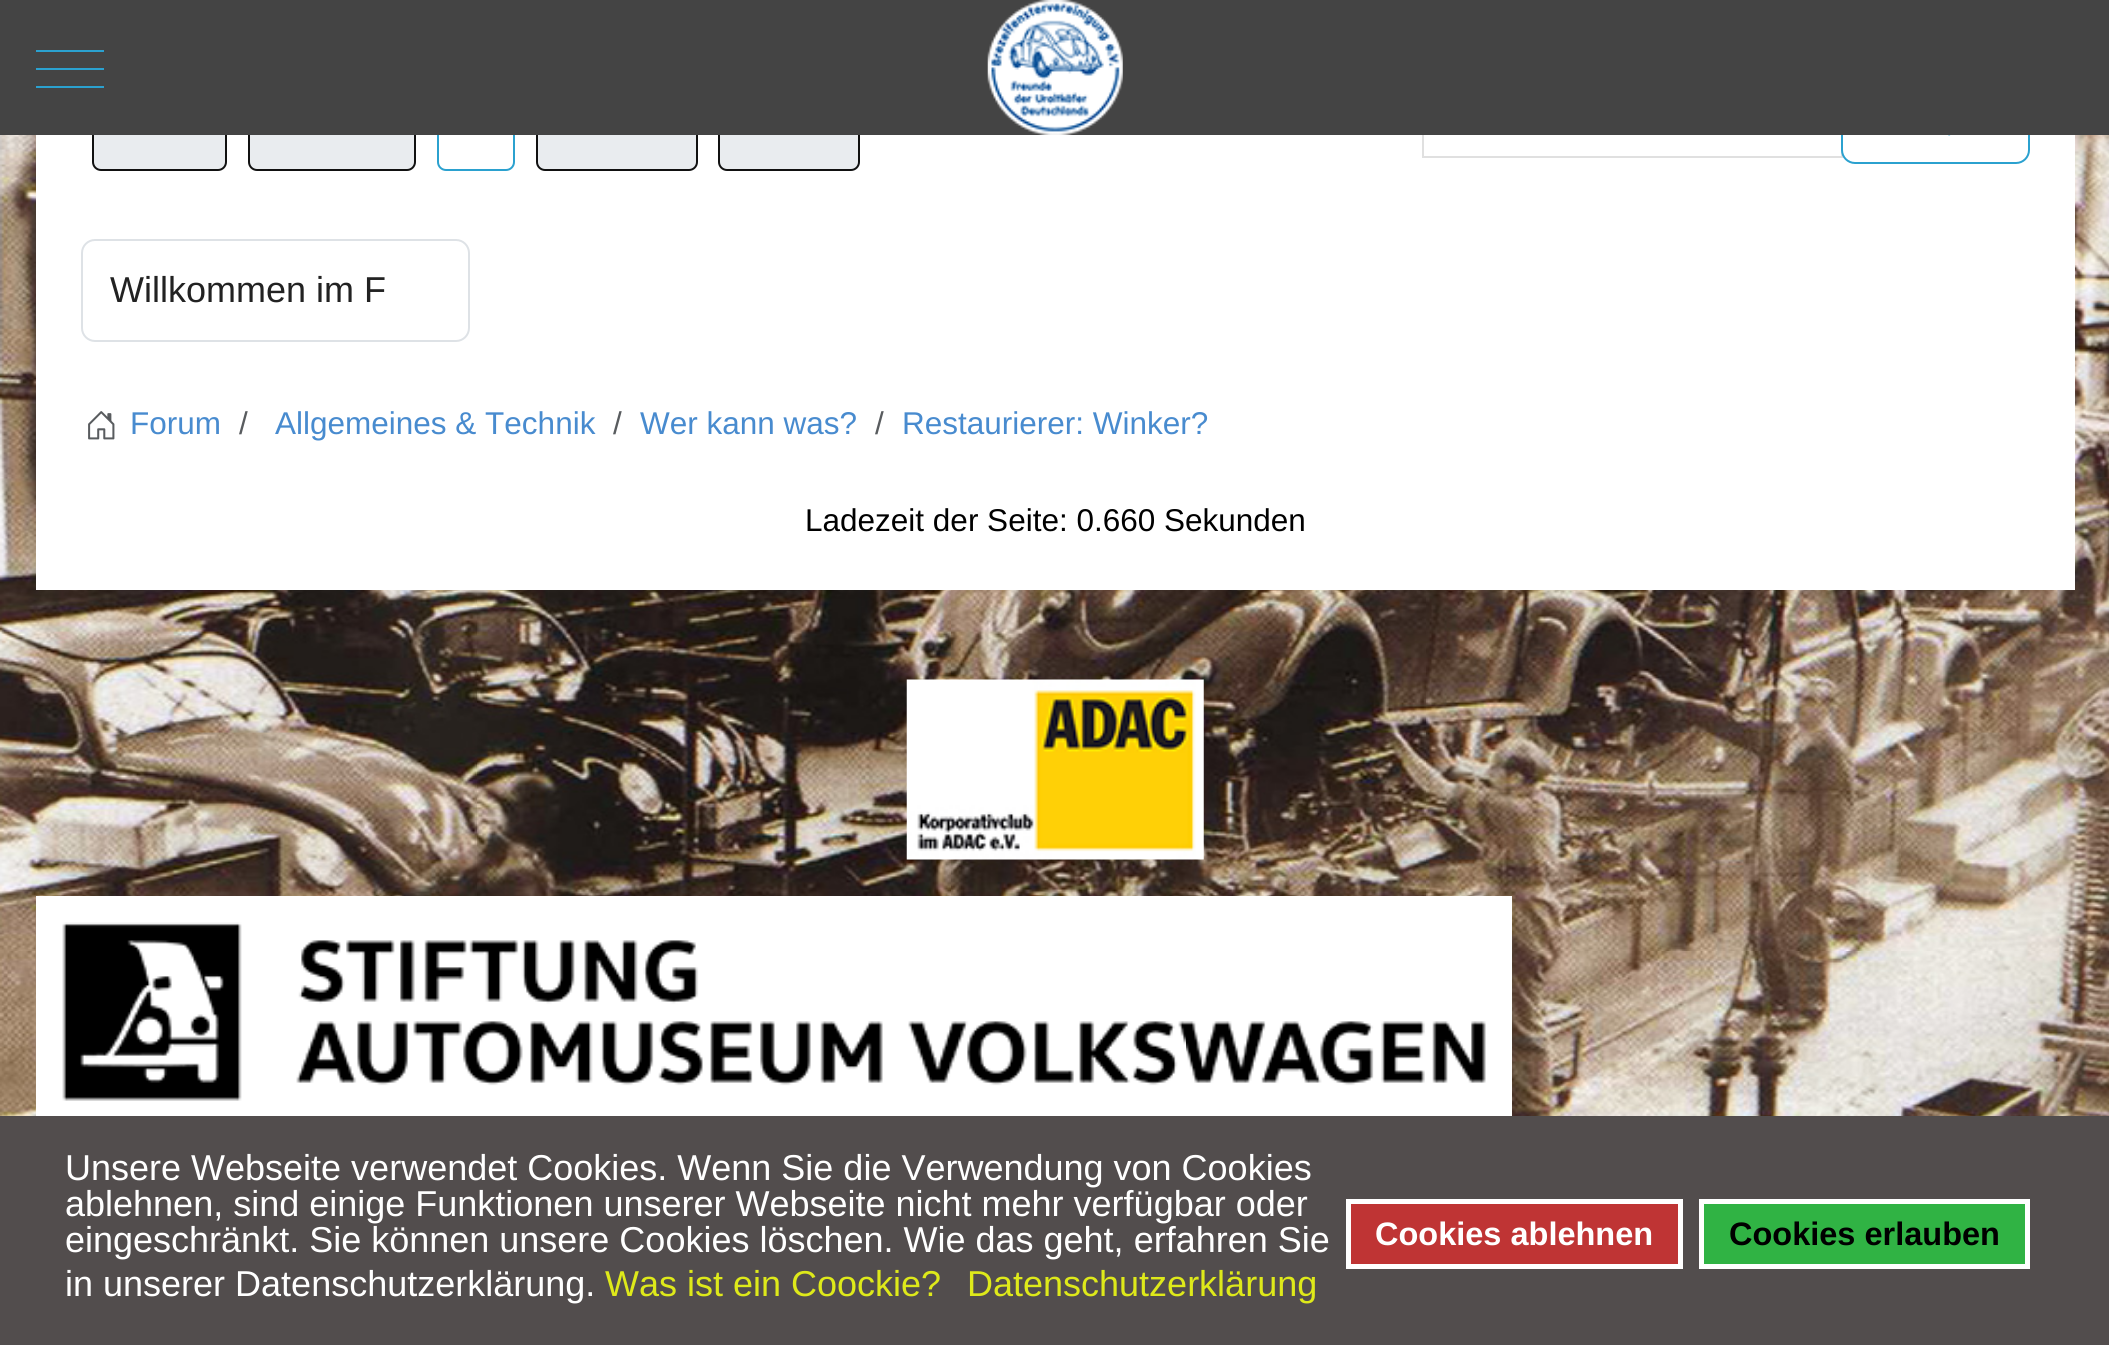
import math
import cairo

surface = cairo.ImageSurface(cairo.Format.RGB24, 2109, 1345)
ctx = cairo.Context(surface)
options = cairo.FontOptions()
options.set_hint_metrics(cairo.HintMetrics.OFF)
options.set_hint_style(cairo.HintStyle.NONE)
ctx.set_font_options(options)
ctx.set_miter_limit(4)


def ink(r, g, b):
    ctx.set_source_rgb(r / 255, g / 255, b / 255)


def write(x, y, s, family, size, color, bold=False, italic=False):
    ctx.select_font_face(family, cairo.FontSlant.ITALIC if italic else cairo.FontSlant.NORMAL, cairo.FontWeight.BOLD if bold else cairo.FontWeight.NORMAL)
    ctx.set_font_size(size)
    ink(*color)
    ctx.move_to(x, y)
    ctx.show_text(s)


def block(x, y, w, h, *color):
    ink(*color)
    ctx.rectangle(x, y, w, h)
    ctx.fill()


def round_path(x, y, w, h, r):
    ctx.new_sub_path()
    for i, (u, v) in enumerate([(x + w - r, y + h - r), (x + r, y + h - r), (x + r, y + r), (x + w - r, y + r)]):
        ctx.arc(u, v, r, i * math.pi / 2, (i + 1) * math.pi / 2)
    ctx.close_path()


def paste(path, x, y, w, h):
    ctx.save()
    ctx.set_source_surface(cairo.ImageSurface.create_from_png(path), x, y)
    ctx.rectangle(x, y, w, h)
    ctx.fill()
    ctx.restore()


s1 = dict(family="Liberation Sans", size=36, color=(34, 34, 34))
s2 = dict(family="Liberation Sans", size=31.5, color=(72, 139, 207))
s3 = dict(family="Liberation Sans", size=31.5, color=(89, 92, 95))
s4 = dict(family="Liberation Sans", size=31.5, color=(0, 0, 0))
s5 = dict(family="Liberation Sans", size=36, color=(255, 255, 255))
s6 = dict(family="Liberation Sans", size=36, color=(222, 233, 26))
s7 = dict(family="Liberation Sans", size=32.5, color=(255, 255, 255), bold=True)
s8 = dict(family="Liberation Sans", size=32.5, color=(0, 0, 0), bold=True)

ink(255, 255, 255)
ctx.paint()
paste("pic1.png", 0, 135, 2109, 981)
block(36, 135, 2039, 455, 255, 255, 255)
ink(233, 236, 239)
round_path(93, 93, 133, 77, 8)
ctx.fill_preserve()
ink(17, 17, 17)
ctx.stroke()
ink(233, 236, 239)
round_path(249, 93, 166, 77, 8)
ctx.fill_preserve()
ink(17, 17, 17)
ctx.stroke()
round_path(438, 93, 76, 77, 8)
ink(43, 161, 207)
ctx.stroke()
ink(233, 236, 239)
round_path(537, 93, 160, 77, 8)
ctx.fill_preserve()
ink(17, 17, 17)
ctx.stroke()
ink(233, 236, 239)
round_path(719, 93, 140, 77, 8)
ctx.fill_preserve()
ink(17, 17, 17)
ctx.stroke()
ctx.rectangle(1423, 71, 419, 86)
ctx.set_source_rgba(0.867, 0.867, 0.867, 0.9)
ctx.stroke()
round_path(1842, 71, 187, 92, 13)
ink(43, 161, 207)
ctx.stroke()
block(0, 0, 2109, 135, 68, 68, 68)
block(36, 68, 68, 2, 43, 161, 207)
block(36, 50, 68, 2, 43, 161, 207)
block(36, 86, 68, 2, 43, 161, 207)
paste("pic2.png", 987, 0, 136, 135)
paste("pic3.png", 1948, 135, 3, 1)
round_path(82, 240, 387, 101, 13)
ink(222, 226, 230)
ctx.stroke()
write(110, 302, "Willkommen im F", **s1)
paste("pic4.png", 88, 411, 27, 29)
write(130, 434, "Forum", **s2)
write(239, 434, "/", **s3)
write(275, 434, "Allgemeines & Technik", **s2)
write(613, 434, "/", **s3)
write(640, 434, "Wer kann was?", **s2)
write(875, 434, "/", **s3)
write(902, 434, "Restaurierer: Winker?", **s2)
write(805, 531, "Ladezeit der Seite: 0.660 Sekunden", **s4)
paste("pic5.png", 906, 679, 298, 181)
paste("pic6.png", 36, 896, 1476, 220)
block(0, 1116, 2109, 229, 82, 77, 77)
write(65, 1180, "Unsere Webseite verwendet Cookies. Wenn Sie die Verwendung von Cookies", **s5)
write(65, 1216, "ablehnen, sind einige Funktionen unserer Webseite nicht mehr verfügbar oder", **s5)
write(65, 1252, "eingeschränkt. Sie können unsere Cookies löschen. Wie das geht, erfahren Sie", **s5)
write(65, 1296, "in unserer Datenschutzerklärung.", **s5)
write(605, 1296, "Was ist ein Coockie?", **s6)
write(967, 1296, "Datenschutzerklärung", **s6)
ink(191, 52, 52)
ctx.rectangle(1348.5, 1201.5, 332, 65)
ctx.fill_preserve()
ink(255, 255, 255)
ctx.set_line_width(5)
ctx.stroke()
write(1375, 1245, "Cookies ablehnen", **s7)
ink(48, 179, 68)
ctx.rectangle(1701.5, 1201.5, 326, 65)
ctx.fill_preserve()
ink(255, 255, 255)
ctx.stroke()
write(1729, 1245, "Cookies erlauben", **s8)
surface.write_to_png("screenshot.png")
